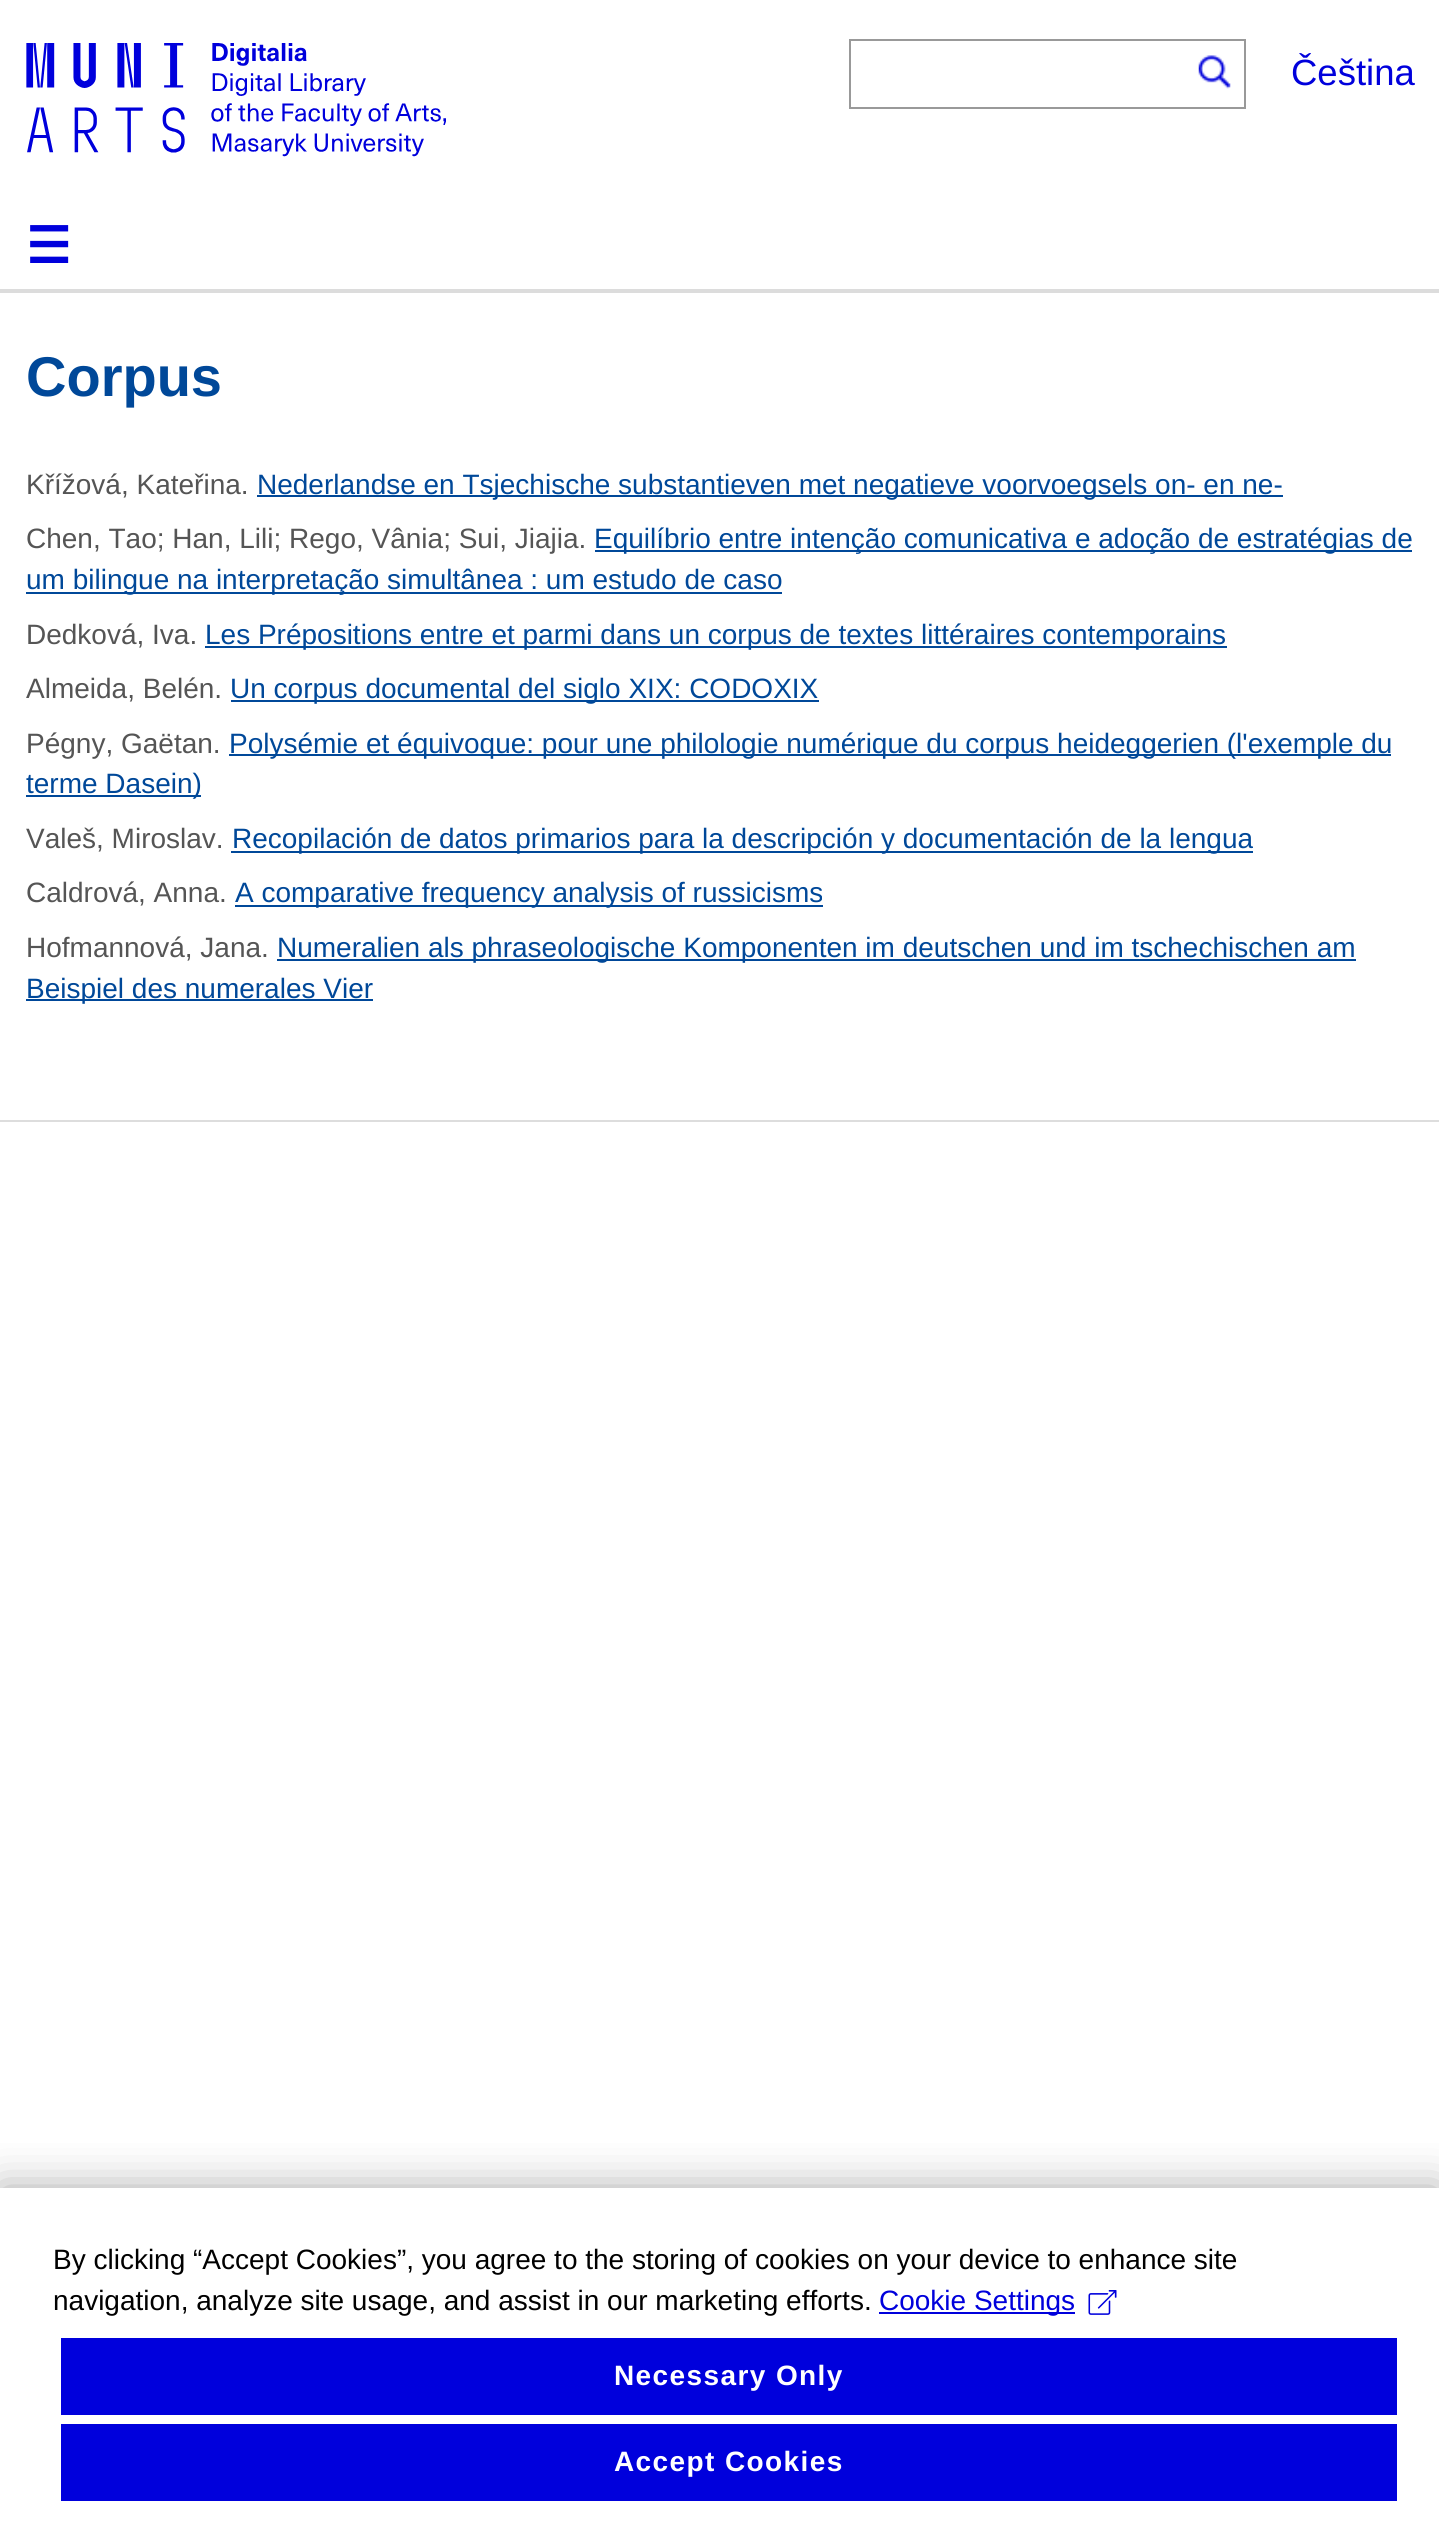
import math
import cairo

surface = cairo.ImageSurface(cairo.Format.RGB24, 1439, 2544)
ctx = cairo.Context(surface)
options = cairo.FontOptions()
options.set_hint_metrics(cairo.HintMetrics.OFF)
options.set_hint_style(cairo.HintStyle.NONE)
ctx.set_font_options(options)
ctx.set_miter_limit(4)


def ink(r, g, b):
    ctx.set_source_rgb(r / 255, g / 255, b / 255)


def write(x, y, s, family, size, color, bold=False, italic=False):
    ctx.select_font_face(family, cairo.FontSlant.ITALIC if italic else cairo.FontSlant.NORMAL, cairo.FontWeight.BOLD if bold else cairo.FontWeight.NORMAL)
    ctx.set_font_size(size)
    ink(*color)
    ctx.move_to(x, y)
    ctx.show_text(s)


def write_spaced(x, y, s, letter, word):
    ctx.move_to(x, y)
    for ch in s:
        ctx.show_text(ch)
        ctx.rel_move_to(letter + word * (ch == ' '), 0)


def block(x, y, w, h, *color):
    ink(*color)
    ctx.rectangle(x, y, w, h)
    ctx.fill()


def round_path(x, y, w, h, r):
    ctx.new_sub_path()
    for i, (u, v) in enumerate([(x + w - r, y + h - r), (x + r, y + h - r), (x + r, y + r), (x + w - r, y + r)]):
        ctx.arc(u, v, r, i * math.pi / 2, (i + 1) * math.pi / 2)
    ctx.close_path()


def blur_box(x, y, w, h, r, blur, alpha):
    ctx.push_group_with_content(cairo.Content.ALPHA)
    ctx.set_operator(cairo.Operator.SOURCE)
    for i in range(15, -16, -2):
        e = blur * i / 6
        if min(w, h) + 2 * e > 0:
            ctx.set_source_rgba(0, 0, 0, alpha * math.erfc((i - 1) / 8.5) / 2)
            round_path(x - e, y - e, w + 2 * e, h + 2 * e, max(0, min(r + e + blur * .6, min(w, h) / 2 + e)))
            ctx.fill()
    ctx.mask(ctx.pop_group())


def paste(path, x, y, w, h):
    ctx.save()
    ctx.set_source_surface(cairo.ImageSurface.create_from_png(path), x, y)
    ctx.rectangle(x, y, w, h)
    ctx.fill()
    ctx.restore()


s1 = dict(family="Liberation Sans", size=36.5, color=(0, 0, 220))
s2 = dict(family="DejaVu Sans", size=50, color=(0, 0, 220), bold=True)
s3 = dict(family="Liberation Sans", size=56, color=(0, 72, 153), bold=True)
s4 = dict(family="Liberation Sans", size=28, color=(85, 85, 85))
s5 = dict(family="Liberation Sans", size=28, color=(0, 72, 153))
s6 = dict(family="Liberation Sans", size=28, color=(0, 0, 0))
s7 = dict(family="Liberation Sans", size=28, color=(0, 0, 220))

ink(255, 255, 255)
ctx.paint()
block(0, 289, 1439, 4, 220, 220, 220)
paste("pic1.png", 26, 43, 420, 114)
block(849, 39, 397, 2, 153, 153, 153)
block(849, 107, 336, 2, 153, 153, 153)
block(849, 39, 2, 70, 153, 153, 153)
paste("pic2.png", 1198, 55, 33, 34)
block(1244, 39, 2, 70, 153, 153, 153)
block(1185, 107, 61, 2, 153, 153, 153)
write(1291, 85, "Čeština", **s1)
write(26, 263, "☰", **s2)
block(0, 1120, 1439, 2, 221, 221, 221)
write(26, 396, "Corpus", **s3)
write(26, 494, "Křížová, Kateřina.", **s4)
block(257, 495, 1026, 2, 0, 72, 153)
write(257, 494, "Nederlandse en Tsjechische substantieven met negatieve voorvoegsels on- en ne-", **s5)
write(26, 548, "Chen, Tao; Han, Lili; Rego, Vânia; Sui, Jiajia.", **s4)
block(595, 550, 817, 2, 0, 72, 153)
write(594, 548, "Equilíbrio entre intenção comunicativa e adoção de estratégias de", **s5)
block(26, 592, 756, 2, 0, 72, 153)
write(26, 589, "um bilingue na interpretação simultânea : um estudo de caso", **s5)
write(26, 644, "Dedková, Iva.", **s4)
block(205, 646, 1022, 2, 0, 72, 153)
write(205, 644, "Les Prépositions entre et parmi dans un corpus de textes littéraires contemporains", **s5)
write(26, 698, "Almeida, Belén.", **s4)
block(231, 700, 588, 2, 0, 72, 153)
write(230, 698, "Un corpus documental del siglo XIX: CODOXIX", **s5)
write(26, 753, "Pégny, Gaëtan.", **s4)
block(229, 754, 1162, 2, 0, 72, 153)
write(229, 753, "Polysémie et équivoque: pour une philologie numérique du corpus heideggerien (l'exemple du", **s5)
block(26, 795, 175, 2, 0, 72, 153)
write(26, 793, "terme Dasein)", **s5)
write(26, 848, "Valeš, Miroslav.", **s4)
block(231, 851, 1022, 2, 0, 72, 153)
write(232, 848, "Recopilación de datos primarios para la descripción y documentación de la lengua", **s5)
write(26, 902, "Caldrová, Anna.", **s4)
block(235, 905, 588, 2, 0, 72, 153)
write(235, 902, "A comparative frequency analysis of russicisms", **s5)
write(26, 957, "Hofmannová, Jana.", **s4)
block(277, 959, 1079, 2, 0, 72, 153)
write(277, 957, "Numeralien als phraseologische Komponenten im deutschen und im tschechischen am", **s5)
block(26, 999, 347, 2, 0, 72, 153)
write(26, 998, "Beispiel des numerales Vier", **s5)
ctx.save()
ctx.rectangle(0, 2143, 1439, 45)
ctx.clip()
ink(170, 170, 170)
blur_box(0, 2188, 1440, 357, 0, 22, 1)
ctx.restore()
write(53, 2269, "By clicking “Accept Cookies”, you agree to the storing of cookies on your device to enhance site", **s6)
write(53, 2310, "navigation, analyze site usage, and assist in our marketing efforts.", **s6)
block(879, 2312, 196, 2, 0, 0, 220)
write(879, 2310, "Cookie Settings", **s7)
paste("pic3.png", 1088, 2290, 29, 25)
block(61, 2338, 1336, 77, 0, 0, 220)
ctx.select_font_face("Liberation Sans", cairo.FontSlant.NORMAL, cairo.FontWeight.BOLD)
ink(255, 255, 255)
write_spaced(614, 2385, "Necessary Only", 1.4, 0)
block(61, 2424, 1336, 77, 0, 0, 220)
ink(255, 255, 255)
write_spaced(614, 2471, "Accept Cookies", 1.4, 0)
surface.write_to_png("screenshot.png")
